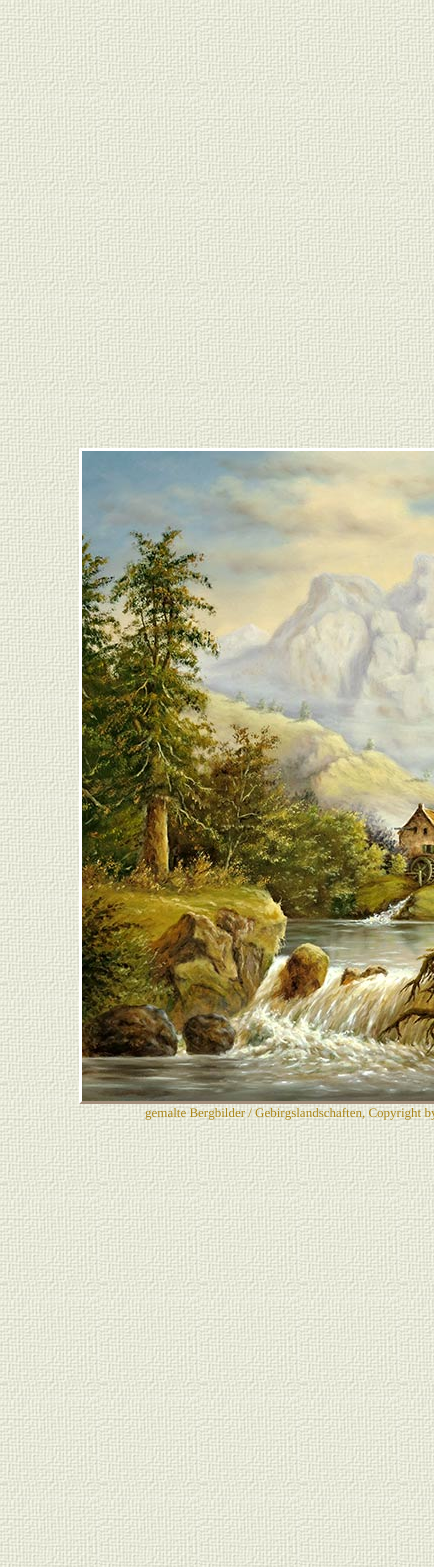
import math
import cairo

surface = cairo.ImageSurface(cairo.Format.RGB24, 434, 1567)
ctx = cairo.Context(surface)
options = cairo.FontOptions()
options.set_hint_metrics(cairo.HintMetrics.OFF)
options.set_hint_style(cairo.HintStyle.NONE)
ctx.set_font_options(options)
ctx.set_miter_limit(4)


def ink(r, g, b):
    ctx.set_source_rgb(r / 255, g / 255, b / 255)


def write(x, y, s, family, size, color, bold=False, italic=False):
    ctx.select_font_face(family, cairo.FontSlant.ITALIC if italic else cairo.FontSlant.NORMAL, cairo.FontWeight.BOLD if bold else cairo.FontWeight.NORMAL)
    ctx.set_font_size(size)
    ink(*color)
    ctx.move_to(x, y)
    ctx.show_text(s)


def paste(path, x, y, w, h):
    ctx.save()
    ctx.set_source_surface(cairo.ImageSurface.create_from_png(path), x, y)
    ctx.rectangle(x, y, w, h)
    ctx.fill()
    ctx.restore()


s1 = dict(family="Liberation Serif", size=13, color=(169, 133, 24))

ink(255, 255, 255)
ctx.paint()
paste("pic1.png", 0, 0, 434, 1567)
ink(255, 255, 255)
ctx.new_path()
ctx.move_to(79, 448)
ctx.line_to(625, 448)
ctx.line_to(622, 451)
ctx.line_to(82, 451)
ctx.close_path()
ctx.fill()
ink(163, 143, 124)
ctx.new_path()
ctx.move_to(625, 1104)
ctx.line_to(79, 1104)
ctx.line_to(82, 1101)
ctx.line_to(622, 1101)
ctx.close_path()
ctx.fill()
ink(255, 255, 255)
ctx.new_path()
ctx.move_to(79, 1104)
ctx.line_to(79, 448)
ctx.line_to(82, 451)
ctx.line_to(82, 1101)
ctx.close_path()
ctx.fill()
paste("pic2.png", 82, 451, 352, 650)
write(145, 1117, "gemalte Bergbilder / Gebirgslandschaften, Copyright by", **s1)
surface.write_to_png("screenshot.png")
